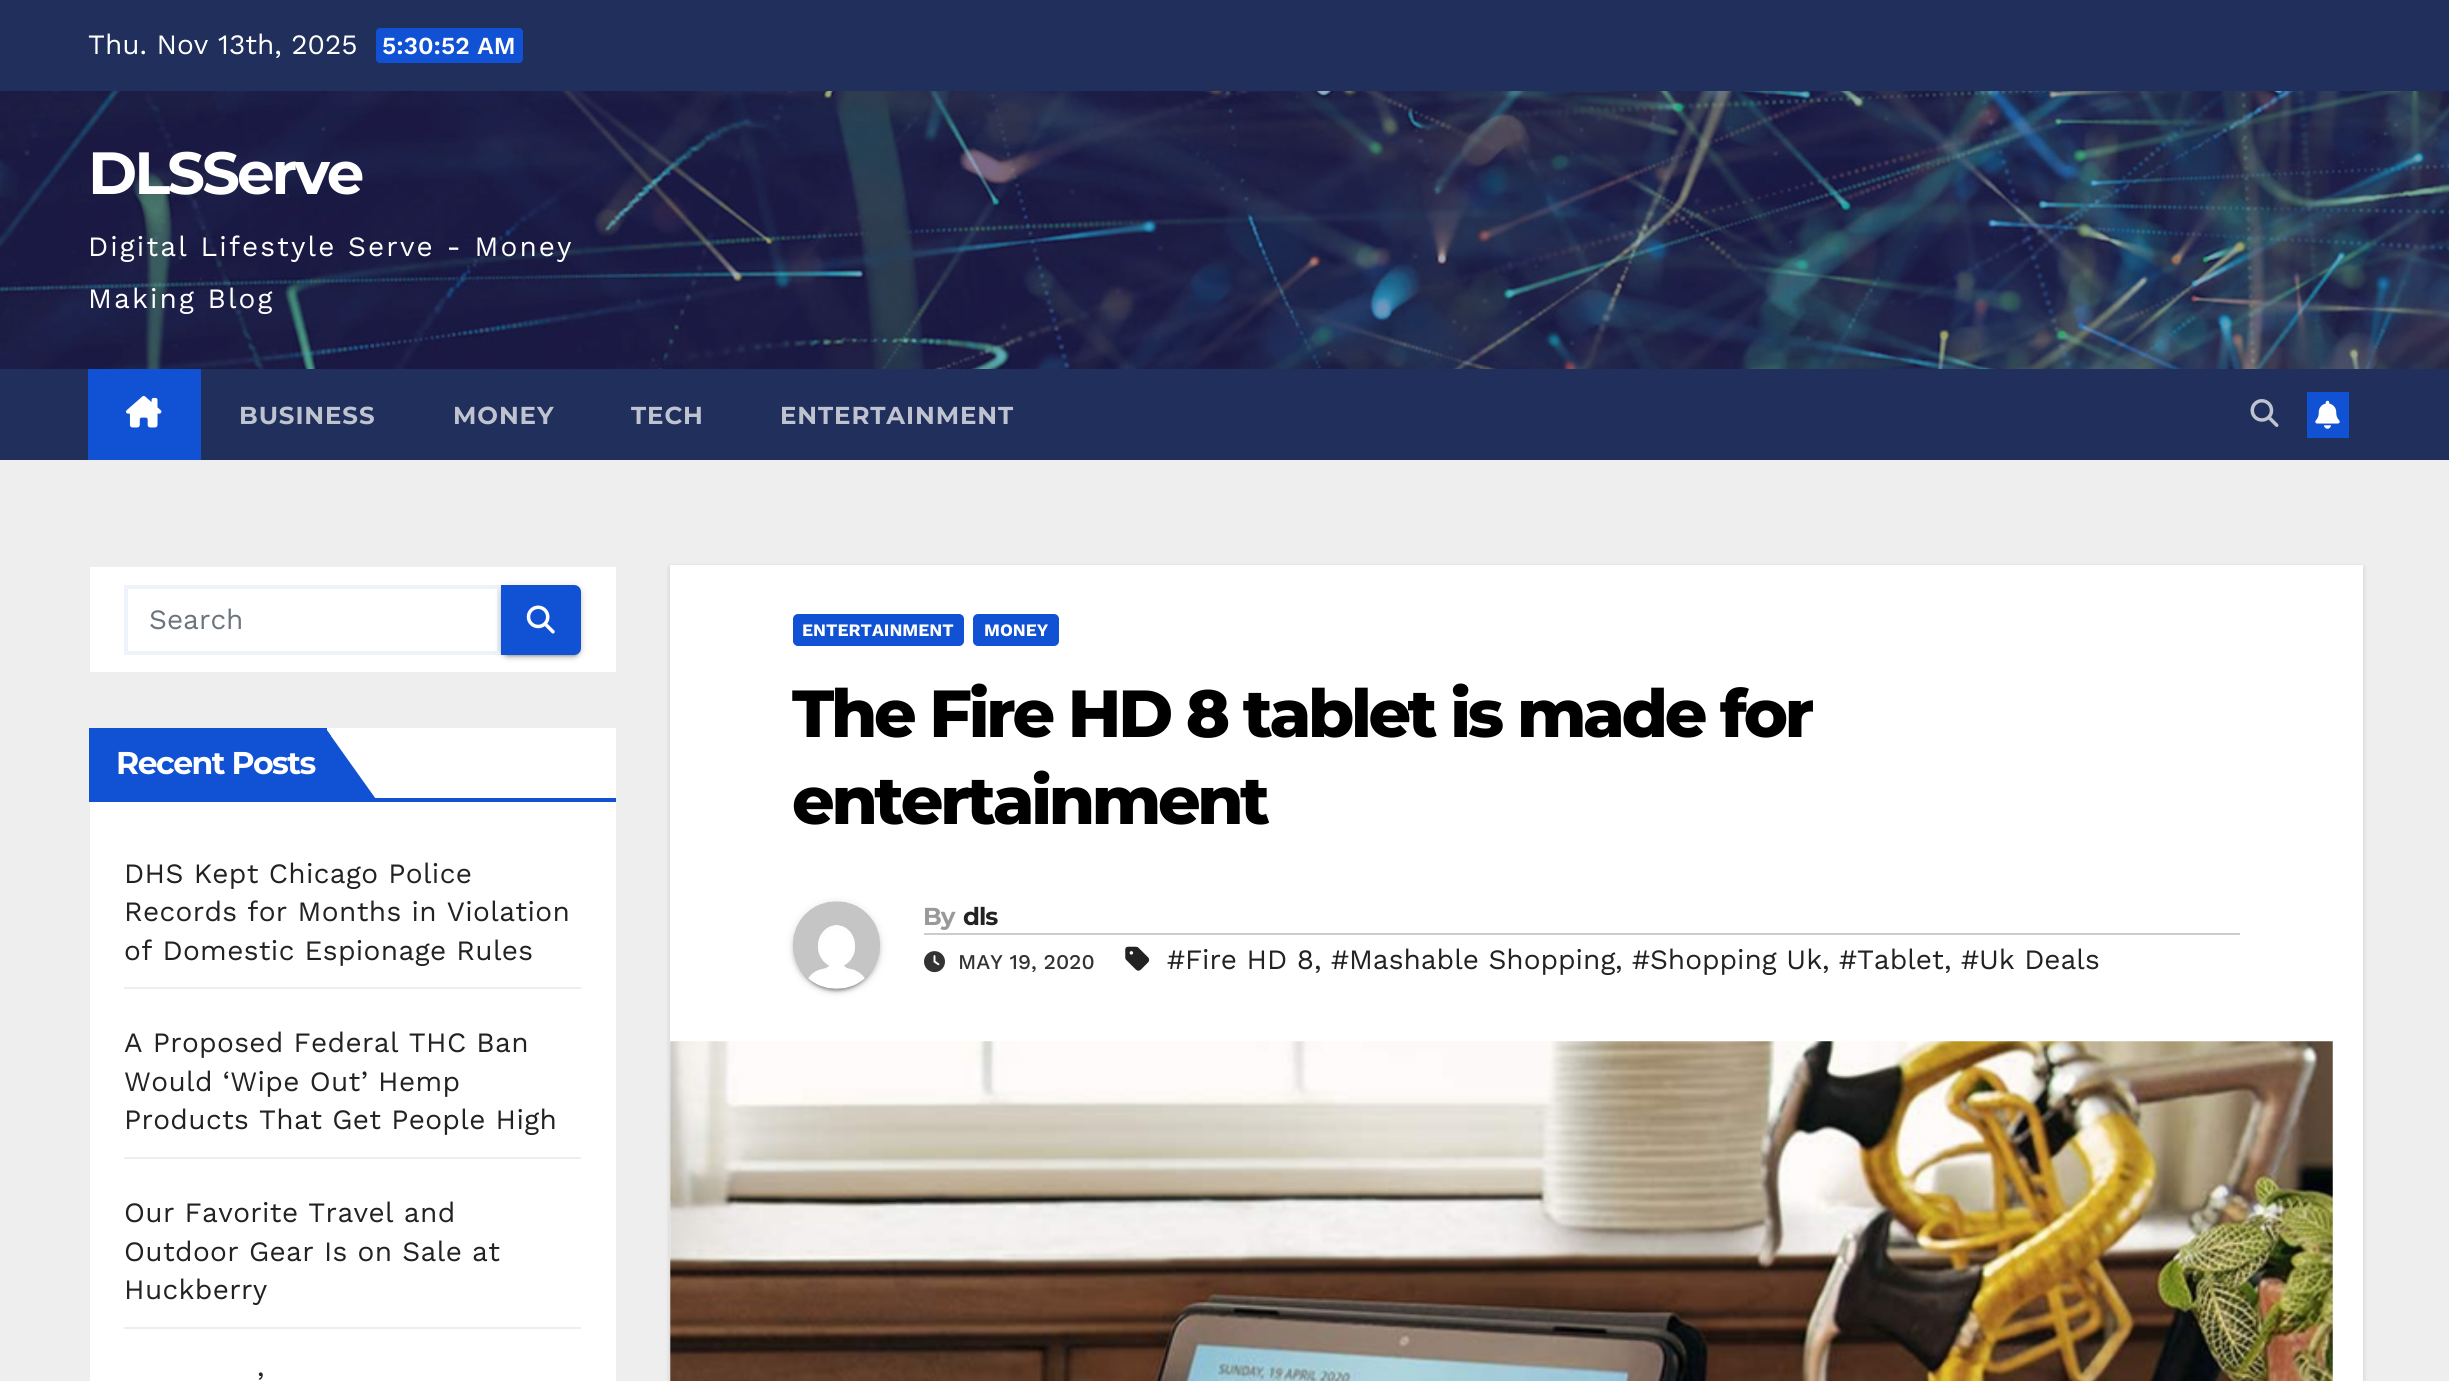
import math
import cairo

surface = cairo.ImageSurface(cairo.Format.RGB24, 2449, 1381)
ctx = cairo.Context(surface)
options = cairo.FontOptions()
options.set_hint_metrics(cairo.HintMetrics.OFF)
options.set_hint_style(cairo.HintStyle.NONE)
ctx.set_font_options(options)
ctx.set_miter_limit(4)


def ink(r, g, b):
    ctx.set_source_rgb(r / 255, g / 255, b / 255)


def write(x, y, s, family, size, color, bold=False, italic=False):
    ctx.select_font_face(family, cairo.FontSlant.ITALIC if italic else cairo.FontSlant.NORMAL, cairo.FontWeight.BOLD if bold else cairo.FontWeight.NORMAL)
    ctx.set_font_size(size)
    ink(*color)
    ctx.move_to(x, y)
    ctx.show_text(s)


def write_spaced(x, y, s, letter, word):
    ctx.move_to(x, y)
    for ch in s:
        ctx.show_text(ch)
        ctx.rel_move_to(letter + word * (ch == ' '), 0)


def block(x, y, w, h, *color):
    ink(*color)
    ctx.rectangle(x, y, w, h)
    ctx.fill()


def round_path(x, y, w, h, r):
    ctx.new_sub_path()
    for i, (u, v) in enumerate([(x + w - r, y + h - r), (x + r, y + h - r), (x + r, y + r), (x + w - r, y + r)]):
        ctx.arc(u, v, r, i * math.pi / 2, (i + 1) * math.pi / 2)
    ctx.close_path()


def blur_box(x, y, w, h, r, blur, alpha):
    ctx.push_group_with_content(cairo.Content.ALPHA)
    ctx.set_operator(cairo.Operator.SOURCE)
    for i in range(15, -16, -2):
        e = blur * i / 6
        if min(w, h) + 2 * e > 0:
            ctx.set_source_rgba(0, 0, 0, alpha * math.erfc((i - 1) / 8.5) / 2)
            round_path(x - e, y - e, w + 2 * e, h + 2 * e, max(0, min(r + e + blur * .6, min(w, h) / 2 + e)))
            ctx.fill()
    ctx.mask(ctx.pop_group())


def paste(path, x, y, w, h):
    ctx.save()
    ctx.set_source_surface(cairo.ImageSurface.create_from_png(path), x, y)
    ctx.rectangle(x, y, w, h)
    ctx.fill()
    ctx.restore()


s1 = dict(family="Work Sans", size=28, color=(255, 255, 255))
s2 = dict(family="Work Sans SemiBold", size=24.5, color=(255, 255, 255))
s3 = dict(family="Work Sans", size=28, color=(108, 117, 125))
s4 = dict(family="Work Sans", size=17.5, color=(255, 255, 255), bold=True)
s5 = dict(family="Work Sans Medium", size=21, color=(51, 51, 51))
s6 = dict(family="Work Sans", size=28, color=(34, 34, 34))

ink(238, 238, 238)
ctx.paint()
block(0, 0, 2449, 91, 32, 47, 91)
write(88, 54, "Thu. Nov 13th, 2025", **s1)
ink(17, 81, 211)
round_path(376, 28, 147, 35, 4)
ctx.fill()
write(382, 54, "5:30:52 AM", **s2)
paste("pic1.png", 0, 91, 2449, 278)
ctx.select_font_face("Montserrat", cairo.FontSlant.NORMAL, cairo.FontWeight.BOLD)
ctx.set_font_size(59.5)
write_spaced(88, 194, "DLSServe", -3, 0)
ctx.select_font_face("Work Sans")
ctx.set_font_size(28)
write_spaced(88, 256, "Digital Lifestyle Serve - Money", 2.1, 0)
write_spaced(88, 308, "Making Blog", 2.1, 0)
block(0, 369, 2449, 91, 32, 47, 91)
block(88, 369, 113, 91, 17, 81, 211)
paste("pic2.png", 126, 395, 36, 33)
ctx.select_font_face("Montserrat", cairo.FontSlant.NORMAL, cairo.FontWeight.BOLD)
ctx.set_font_size(24.5)
ink(190, 195, 207)
write_spaced(239, 424, "BUSINESS", 0.9, 0)
write_spaced(453, 424, "MONEY", 0.9, 0)
write_spaced(631, 424, "TECH", 0.9, 0)
write_spaced(780, 424, "ENTERTAINMENT", 0.9, 0)
paste("pic3.png", 2250, 399, 29, 28)
block(2307, 392, 42, 46, 17, 81, 211)
paste("pic4.png", 2315, 400, 25, 29)
block(90, 567, 526, 105, 255, 255, 255)
ctx.rectangle(126, 587, 373, 66)
ink(238, 243, 251)
ctx.set_line_width(4)
ctx.stroke()
write(149, 629, "Search", **s3)
ink(0, 0, 0)
blur_box(501, 586, 80, 70, 7, 4.5, 0.12)
blur_box(504, 593, 74, 63, 4, 1, 0.2)
blur_box(501, 588, 80, 70, 7, 2, 0.14)
ink(17, 81, 211)
ctx.new_path()
ctx.move_to(501, 585)
ctx.line_to(574, 585)
ctx.curve_to(578, 585, 581, 588, 581, 592)
ctx.line_to(581, 648)
ctx.curve_to(581, 652, 578, 655, 574, 655)
ctx.line_to(501, 655)
ctx.close_path()
ctx.fill()
paste("pic5.png", 526, 605, 29, 29)
block(90, 728, 526, 653, 255, 255, 255)
block(89, 798, 527, 4, 17, 81, 211)
block(89, 728, 238, 70, 17, 81, 211)
ctx.select_font_face("Montserrat", cairo.FontSlant.NORMAL, cairo.FontWeight.BOLD)
ctx.set_font_size(31.5)
ink(255, 255, 255)
write_spaced(116, 774, "Recent Posts", -1.5, 0)
ink(17, 81, 211)
ctx.new_path()
ctx.move_to(378, 802)
ctx.line_to(326, 802)
ctx.line_to(326, 729)
ctx.close_path()
ctx.fill()
ctx.new_path()
ctx.move_to(326, 802)
ctx.line_to(331, 796)
ctx.line_to(331, 736)
ctx.line_to(326, 729)
ctx.close_path()
ctx.fill()
block(124, 987, 457, 2, 238, 238, 238)
ctx.select_font_face("Work Sans")
ctx.set_font_size(28)
ink(34, 34, 34)
write_spaced(124, 883, "DHS Kept Chicago Police", 0.35, 0)
write_spaced(124, 921, "Records for Months in Violation", 0.35, 0)
write_spaced(124, 960, "of Domestic Espionage Rules", 0.35, 0)
block(124, 1157, 457, 2, 238, 238, 238)
ink(34, 34, 34)
write_spaced(124, 1052, "A Proposed Federal THC Ban", 0.35, 0)
write_spaced(124, 1091, "Would ‘Wipe Out’ Hemp", 0.35, 0)
write_spaced(124, 1129, "Products That Get People High", 0.35, 0)
block(124, 1327, 457, 2, 238, 238, 238)
ink(34, 34, 34)
write_spaced(124, 1222, "Our Favorite Travel and", 0.35, 0)
write_spaced(124, 1261, "Outdoor Gear Is on Sale at", 0.35, 0)
write_spaced(124, 1299, "Huckberry", 0.35, 0)
write_spaced(257, 1392, "’", 0.35, 0)
ink(0, 0, 0)
blur_box(670, 567, 1693, 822, 0, 2.5, 0.15)
block(670, 565, 1693, 816, 255, 255, 255)
ink(17, 81, 211)
round_path(793, 614, 171, 32, 5)
ctx.fill()
write(802, 636, "ENTERTAINMENT", **s4)
ink(17, 81, 211)
round_path(973, 614, 86, 32, 5)
ctx.fill()
write(984, 636, "MONEY", **s4)
ctx.select_font_face("Montserrat ExtraBold")
ctx.set_font_size(66.5)
ink(0, 0, 0)
write_spaced(792, 737, "The Fire HD 8 tablet is made for", -3.3, 0)
write_spaced(792, 824, "entertainment", -3.3, 0)
ink(0, 0, 0)
blur_box(793, 903, 87, 88, 43.5, 4.5, 0.12)
blur_box(796, 910, 81, 81, 40.5, 1, 0.2)
blur_box(793, 905, 87, 87, 43.5, 2, 0.14)
paste("pic6.png", 793, 901, 87, 88)
block(924, 933, 1316, 2, 204, 204, 204)
ctx.select_font_face("Montserrat", cairo.FontSlant.NORMAL, cairo.FontWeight.BOLD)
ctx.set_font_size(24.5)
ink(153, 153, 153)
write_spaced(923, 925, "By", -1, 0)
ink(34, 34, 34)
write_spaced(963, 925, "dls", -1, 0)
paste("pic7.png", 924, 951, 21, 22)
write(958, 969, "MAY 19, 2020", **s5)
paste("pic8.png", 1125, 946, 25, 25)
write(1167, 969, "#Fire HD 8", **s6)
write(1314, 969, ",", **s6)
write(1331, 969, "#Mashable Shopping", **s6)
write(1615, 969, ",", **s6)
write(1632, 969, "#Shopping Uk", **s6)
write(1822, 969, ",", **s6)
write(1839, 969, "#Tablet", **s6)
write(1944, 969, ",", **s6)
write(1961, 969, "#Uk Deals", **s6)
paste("pic9.png", 670, 1041, 1663, 340)
surface.write_to_png("screenshot.png")
